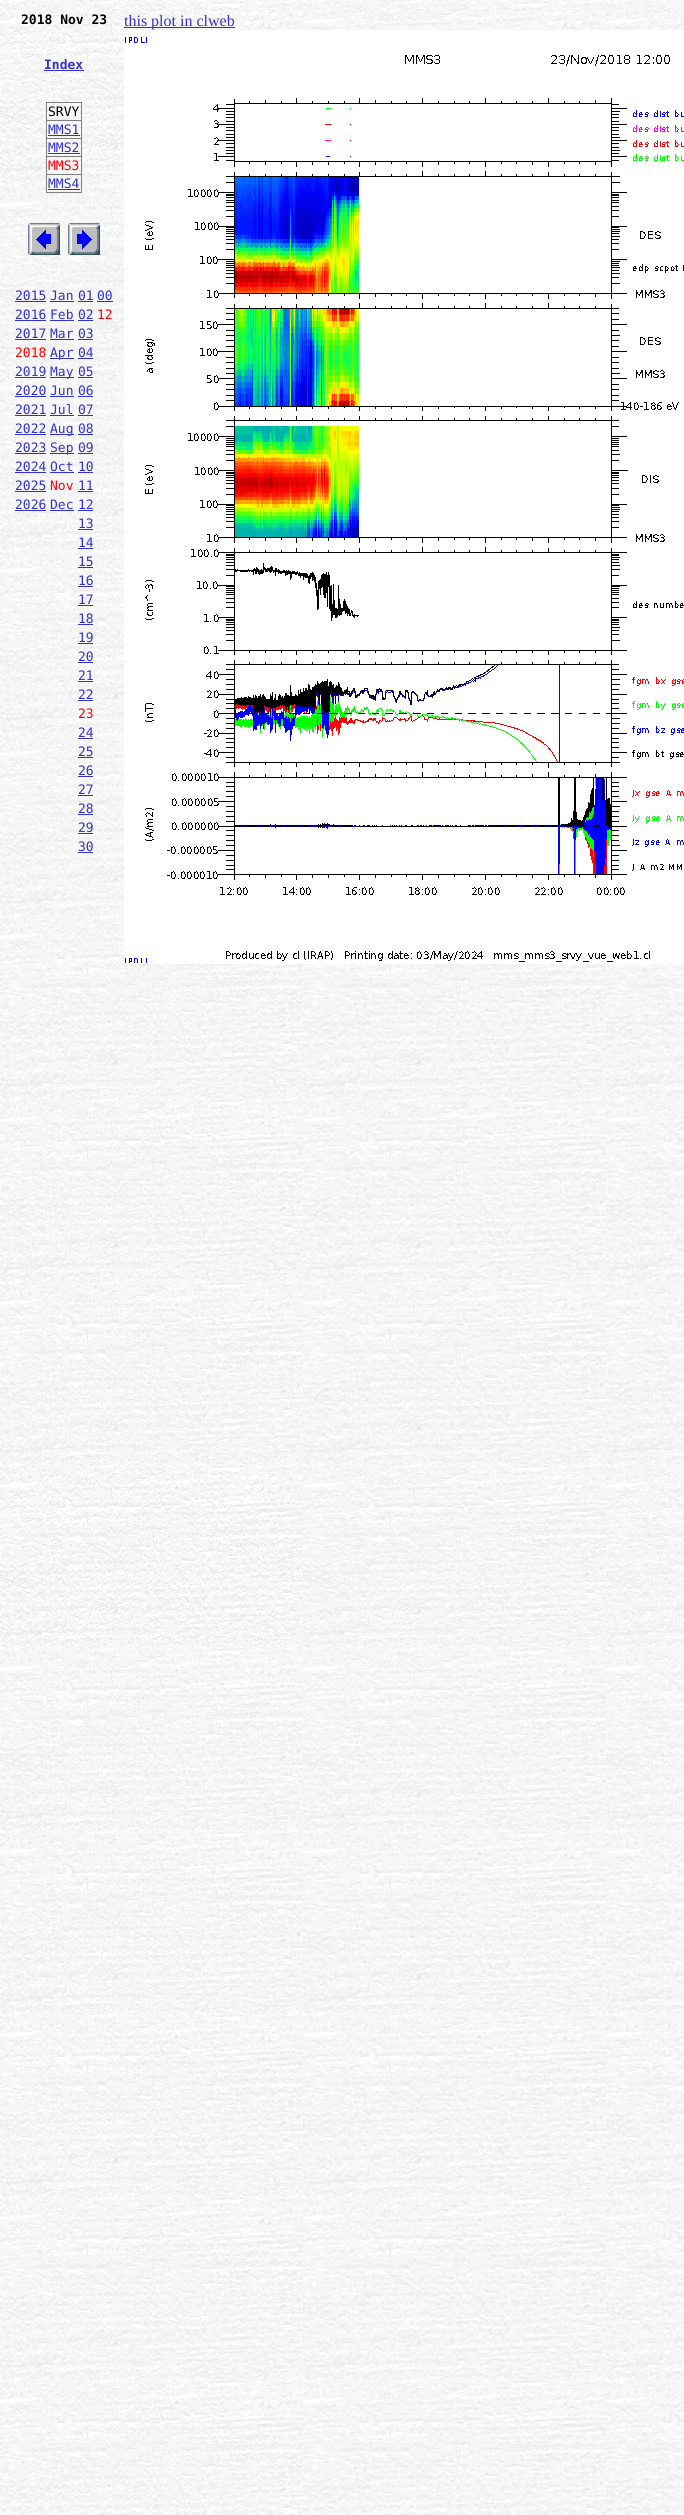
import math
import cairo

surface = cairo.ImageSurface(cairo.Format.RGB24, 684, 2515)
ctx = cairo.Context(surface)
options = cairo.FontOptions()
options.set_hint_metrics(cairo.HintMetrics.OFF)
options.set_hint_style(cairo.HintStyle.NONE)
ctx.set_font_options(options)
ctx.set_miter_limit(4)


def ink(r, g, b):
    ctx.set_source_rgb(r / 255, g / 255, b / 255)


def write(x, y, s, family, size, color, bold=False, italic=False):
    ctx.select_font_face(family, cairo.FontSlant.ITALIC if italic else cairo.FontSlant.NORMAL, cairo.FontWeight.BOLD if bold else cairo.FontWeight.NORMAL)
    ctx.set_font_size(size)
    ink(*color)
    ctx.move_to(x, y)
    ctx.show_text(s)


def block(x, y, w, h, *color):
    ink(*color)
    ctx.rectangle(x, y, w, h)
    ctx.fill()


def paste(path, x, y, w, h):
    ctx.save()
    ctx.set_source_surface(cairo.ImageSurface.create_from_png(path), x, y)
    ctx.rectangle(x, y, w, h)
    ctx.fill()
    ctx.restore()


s1 = dict(family="DejaVu Sans Mono", size=13, color=(0, 0, 0), bold=True)
s2 = dict(family="DejaVu Sans Mono", size=13, color=(51, 51, 204), bold=True)
s3 = dict(family="DejaVu Sans Mono", size=13, color=(0, 0, 0))
s4 = dict(family="DejaVu Sans Mono", size=13, color=(51, 51, 204))
s5 = dict(family="DejaVu Sans Mono", size=13, color=(255, 0, 0))
s6 = dict(family="Liberation Serif", size=16, color=(51, 51, 204))

ink(255, 255, 255)
ctx.paint()
paste("pic1.png", 0, 0, 684, 2515)
write(21, 24, "2018 Nov 23", **s1)
write(44, 69, "Index", **s2)
block(44, 70, 40, 1, 51, 51, 204)
block(46, 102, 36, 1, 128, 128, 128)
block(81, 102, 1, 91, 128, 128, 128)
block(46, 192, 36, 1, 128, 128, 128)
block(46, 102, 1, 91, 128, 128, 128)
write(48, 116, "SRVY", **s3)
block(46, 120, 36, 1, 128, 128, 128)
write(48, 134, "MMS1", **s4)
block(48, 135, 32, 1, 51, 51, 204)
block(46, 138, 36, 1, 128, 128, 128)
write(48, 152, "MMS2", **s4)
block(48, 153, 32, 1, 51, 51, 204)
block(46, 156, 36, 1, 128, 128, 128)
write(48, 170, "MMS3", **s5)
block(46, 174, 36, 1, 128, 128, 128)
write(48, 188, "MMS4", **s4)
block(48, 189, 32, 1, 51, 51, 204)
paste("pic2.png", 28, 223, 32, 32)
paste("pic3.png", 68, 223, 32, 32)
write(15, 300, "2015", **s4)
block(15, 301, 31, 1, 51, 51, 204)
write(50, 300, "Jan", **s4)
block(50, 301, 24, 1, 51, 51, 204)
write(78, 300, "01", **s4)
block(78, 301, 15, 1, 51, 51, 204)
write(97, 300, "00", **s4)
block(97, 301, 16, 1, 51, 51, 204)
write(15, 319, "2016", **s4)
block(15, 320, 31, 1, 51, 51, 204)
write(50, 319, "Feb", **s4)
block(50, 320, 24, 1, 51, 51, 204)
write(78, 319, "02", **s4)
block(78, 320, 15, 1, 51, 51, 204)
write(97, 319, "12", **s5)
write(15, 338, "2017", **s4)
block(15, 339, 31, 1, 51, 51, 204)
write(50, 338, "Mar", **s4)
block(50, 339, 24, 1, 51, 51, 204)
write(78, 338, "03", **s4)
block(78, 339, 15, 1, 51, 51, 204)
write(15, 357, "2018", **s5)
block(50, 358, 24, 1, 51, 51, 204)
write(50, 357, "Apr", **s4)
write(78, 357, "04", **s4)
block(78, 358, 15, 1, 51, 51, 204)
write(15, 376, "2019", **s4)
block(15, 377, 31, 1, 51, 51, 204)
block(50, 377, 24, 1, 51, 51, 204)
write(50, 376, "May", **s4)
write(78, 376, "05", **s4)
block(78, 377, 15, 1, 51, 51, 204)
write(15, 395, "2020", **s4)
block(15, 396, 31, 1, 51, 51, 204)
write(50, 395, "Jun", **s4)
block(50, 396, 24, 1, 51, 51, 204)
write(78, 395, "06", **s4)
block(78, 396, 15, 1, 51, 51, 204)
write(15, 414, "2021", **s4)
block(15, 415, 31, 1, 51, 51, 204)
write(50, 414, "Jul", **s4)
block(50, 415, 24, 1, 51, 51, 204)
write(78, 414, "07", **s4)
block(78, 415, 15, 1, 51, 51, 204)
write(15, 433, "2022", **s4)
block(15, 434, 31, 1, 51, 51, 204)
block(50, 434, 24, 1, 51, 51, 204)
write(50, 433, "Aug", **s4)
write(78, 433, "08", **s4)
block(78, 434, 15, 1, 51, 51, 204)
write(15, 452, "2023", **s4)
block(15, 453, 31, 1, 51, 51, 204)
block(50, 453, 24, 1, 51, 51, 204)
write(50, 452, "Sep", **s4)
write(78, 452, "09", **s4)
block(78, 453, 15, 1, 51, 51, 204)
write(15, 471, "2024", **s4)
block(15, 472, 31, 1, 51, 51, 204)
write(50, 471, "Oct", **s4)
block(50, 472, 24, 1, 51, 51, 204)
write(78, 471, "10", **s4)
block(78, 472, 15, 1, 51, 51, 204)
write(15, 490, "2025", **s4)
block(15, 491, 31, 1, 51, 51, 204)
write(50, 490, "Nov", **s5)
write(78, 490, "11", **s4)
block(78, 491, 15, 1, 51, 51, 204)
write(15, 509, "2026", **s4)
block(15, 510, 31, 1, 51, 51, 204)
write(50, 509, "Dec", **s4)
block(50, 510, 24, 1, 51, 51, 204)
write(78, 509, "12", **s4)
block(78, 510, 15, 1, 51, 51, 204)
write(78, 528, "13", **s4)
block(78, 529, 15, 1, 51, 51, 204)
write(78, 547, "14", **s4)
block(78, 548, 15, 1, 51, 51, 204)
write(78, 566, "15", **s4)
block(78, 567, 15, 1, 51, 51, 204)
write(78, 585, "16", **s4)
block(78, 586, 15, 1, 51, 51, 204)
write(78, 604, "17", **s4)
block(78, 605, 15, 1, 51, 51, 204)
write(78, 623, "18", **s4)
block(78, 624, 15, 1, 51, 51, 204)
write(78, 642, "19", **s4)
block(78, 643, 15, 1, 51, 51, 204)
write(78, 661, "20", **s4)
block(78, 662, 15, 1, 51, 51, 204)
write(78, 680, "21", **s4)
block(78, 681, 15, 1, 51, 51, 204)
write(78, 699, "22", **s4)
block(78, 700, 15, 1, 51, 51, 204)
write(78, 718, "23", **s5)
write(78, 737, "24", **s4)
block(78, 738, 15, 1, 51, 51, 204)
write(78, 756, "25", **s4)
block(78, 757, 15, 1, 51, 51, 204)
write(78, 775, "26", **s4)
block(78, 776, 15, 1, 51, 51, 204)
write(78, 794, "27", **s4)
block(78, 795, 15, 1, 51, 51, 204)
write(78, 813, "28", **s4)
block(78, 814, 15, 1, 51, 51, 204)
write(78, 832, "29", **s4)
block(78, 833, 15, 1, 51, 51, 204)
write(78, 851, "30", **s4)
block(78, 852, 15, 1, 51, 51, 204)
block(124, 27, 111, 1, 51, 51, 204)
write(124, 26, "this plot in clweb", **s6)
paste("pic4.png", 124, 30, 560, 934)
surface.write_to_png("screenshot.png")
